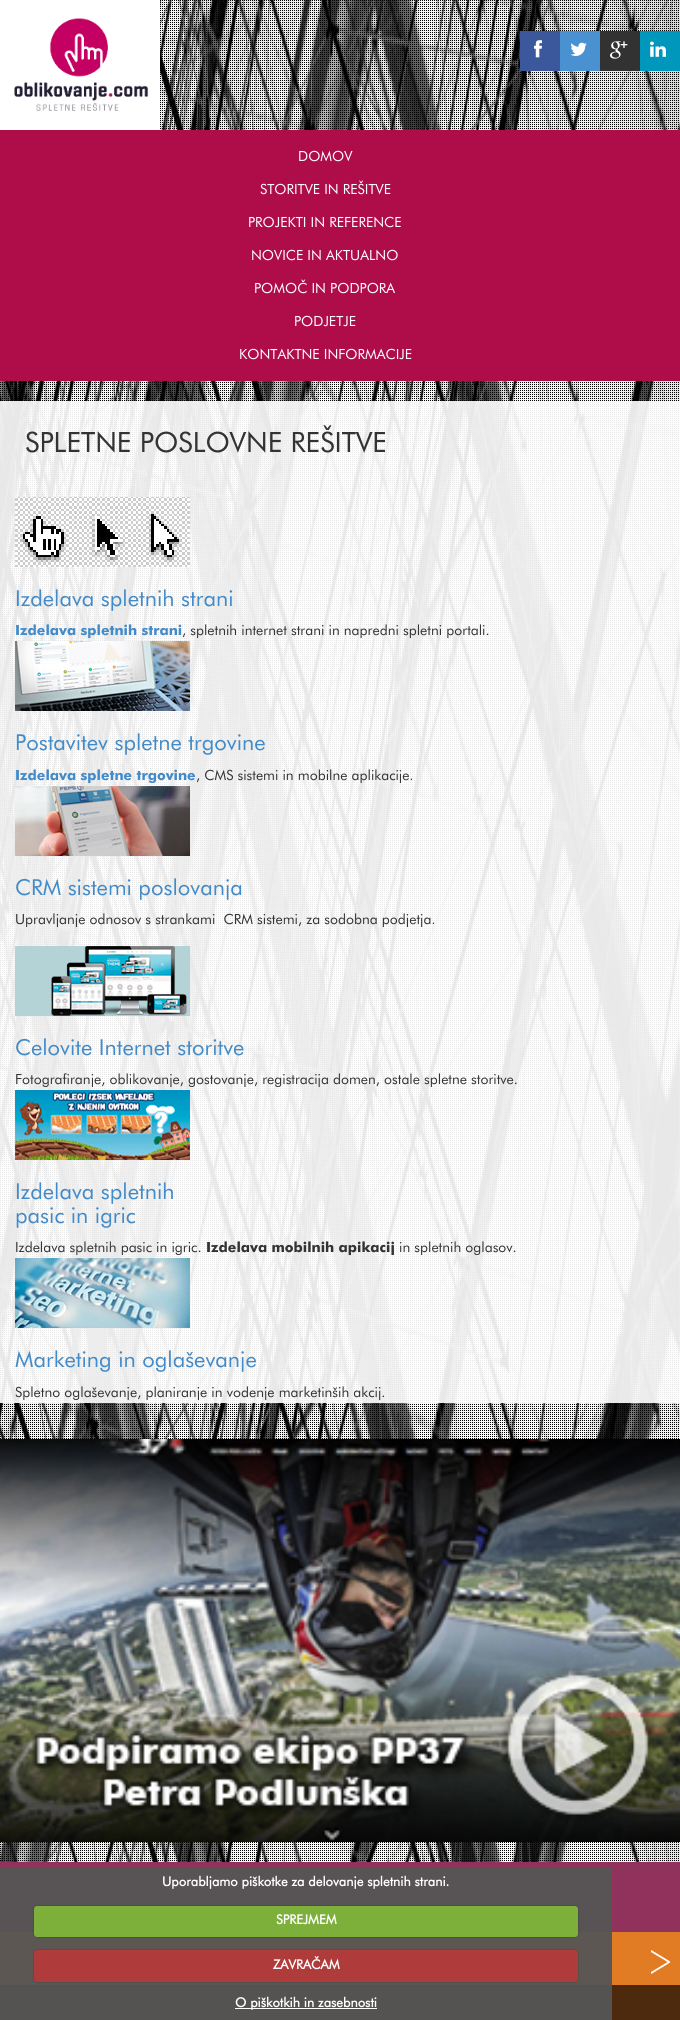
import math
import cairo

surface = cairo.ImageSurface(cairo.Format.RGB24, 680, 2020)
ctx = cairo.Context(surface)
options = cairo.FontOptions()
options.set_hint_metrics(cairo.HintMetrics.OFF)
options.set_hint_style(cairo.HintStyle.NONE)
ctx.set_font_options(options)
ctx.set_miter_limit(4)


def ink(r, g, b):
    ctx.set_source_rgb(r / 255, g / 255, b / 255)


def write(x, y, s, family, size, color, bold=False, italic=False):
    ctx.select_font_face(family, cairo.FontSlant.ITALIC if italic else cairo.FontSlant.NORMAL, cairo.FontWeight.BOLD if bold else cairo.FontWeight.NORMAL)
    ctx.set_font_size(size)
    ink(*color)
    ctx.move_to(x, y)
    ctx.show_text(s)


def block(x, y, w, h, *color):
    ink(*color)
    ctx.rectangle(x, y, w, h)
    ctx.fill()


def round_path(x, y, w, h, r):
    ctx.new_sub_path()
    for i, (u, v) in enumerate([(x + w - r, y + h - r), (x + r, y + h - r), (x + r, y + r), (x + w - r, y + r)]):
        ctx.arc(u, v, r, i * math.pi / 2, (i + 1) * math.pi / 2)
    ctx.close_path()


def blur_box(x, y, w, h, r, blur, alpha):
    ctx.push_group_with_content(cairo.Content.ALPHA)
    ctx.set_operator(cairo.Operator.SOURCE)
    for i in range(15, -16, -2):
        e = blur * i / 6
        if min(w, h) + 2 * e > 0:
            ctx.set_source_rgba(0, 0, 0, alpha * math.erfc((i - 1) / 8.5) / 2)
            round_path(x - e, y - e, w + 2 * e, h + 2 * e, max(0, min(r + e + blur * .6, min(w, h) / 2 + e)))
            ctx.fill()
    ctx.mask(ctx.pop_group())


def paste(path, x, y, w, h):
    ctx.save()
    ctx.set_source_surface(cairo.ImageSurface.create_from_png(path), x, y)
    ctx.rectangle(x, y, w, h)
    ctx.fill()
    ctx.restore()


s1 = dict(family="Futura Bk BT", size=14, color=(255, 255, 255))
s2 = dict(family="Futura Bk BT", size=28, color=(51, 51, 51))
s3 = dict(family="Futura Bk BT", size=22, color=(66, 139, 202))
s4 = dict(family="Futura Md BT", size=14, color=(66, 139, 202), bold=True)
s5 = dict(family="Futura Bk BT", size=14, color=(51, 51, 51))
s6 = dict(family="Futura Md BT", size=14, color=(51, 51, 51), bold=True)
s7 = dict(family="Futura Bk BT", size=13, color=(255, 255, 255), bold=True)

ink(255, 255, 255)
ctx.paint()
paste("pic1.png", 0, 0, 680, 1862)
paste("pic2.png", 0, 0, 679, 1861)
block(0, 0, 160, 130, 255, 255, 255)
paste("pic3.png", 14, 18, 135, 93)
block(520, 31, 40, 40, 60, 88, 156)
paste("pic4.png", 534, 40, 8, 18)
block(560, 31, 40, 40, 73, 145, 209)
paste("pic5.png", 570, 42, 17, 14)
block(600, 31, 40, 40, 50, 50, 50)
paste("pic6.png", 610, 41, 18, 18)
block(640, 31, 40, 40, 0, 151, 189)
paste("pic7.png", 650, 41, 16, 16)
block(0, 130, 680, 251, 175, 13, 74)
write(298, 161, "DOMOV", **s1)
write(260, 194, "STORITVE IN REŠITVE", **s1)
write(248, 227, "PROJEKTI IN REFERENCE", **s1)
write(251, 260, "NOVICE IN AKTUALNO", **s1)
write(254, 293, "POMOČ IN PODPORA", **s1)
write(294, 326, "PODJETJE", **s1)
write(239, 359, "KONTAKTNE INFORMACIJE", **s1)
ctx.set_source_rgba(1, 1, 1, 0.91)
ctx.rectangle(0, 401, 680, 1002)
ctx.fill()
write(25, 452, "SPLETNE POSLOVNE REŠITVE", **s2)
paste("pic8.png", 15, 497, 175, 70)
write(15, 606, "Izdelava spletnih strani", **s3)
write(15, 635, "Izdelava spletnih strani", **s4)
write(182, 635, ", spletnih internet strani in napredni spletni portali.", **s5)
paste("pic9.png", 15, 641, 175, 70)
write(15, 750, "Postavitev spletne trgovine", **s3)
write(15, 780, "Izdelava spletne trgovine", **s4)
write(196, 780, ", CMS sistemi in mobilne aplikacije.", **s5)
paste("pic10.png", 15, 786, 175, 70)
write(15, 895, "CRM sistemi poslovanja", **s3)
write(15, 924, "Upravljanje odnosov s strankami  CRM sistemi, za sodobna podjetja.", **s5)
paste("pic11.png", 15, 946, 175, 70)
write(15, 1055, "Celovite Internet storitve", **s3)
write(15, 1084, "Fotografiranje, oblikovanje, gostovanje, registracija domen, ostale spletne storitve.", **s5)
paste("pic12.png", 15, 1090, 175, 70)
write(15, 1199, "Izdelava spletnih", **s3)
write(15, 1223, "pasic in igric", **s3)
write(15, 1252, "Izdelava spletnih pasic in igric.", **s5)
write(206, 1252, "Izdelava mobilnih apikacij", **s6)
write(399, 1252, "in spletnih oglasov.", **s5)
paste("pic13.png", 15, 1258, 175, 70)
write(15, 1367, "Marketing in oglaševanje", **s3)
write(15, 1397, "Spletno oglaševanje, planiranje in vodenje marketinših akcij.", **s5)
paste("pic14.png", 0, 1439, 680, 403)
block(0, 1862, 680, 70, 145, 50, 92)
block(0, 1932, 680, 88, 225, 124, 37)
paste("pic15.png", 651, 1950, 19, 24)
ctx.set_source_rgba(0, 0, 0, 0.66)
ctx.rectangle(0, 1985, 680, 35)
ctx.fill()
ctx.set_source_rgba(0.337, 0.337, 0.337, 0.95)
ctx.rectangle(0, 1868, 612, 152)
ctx.fill()
write(162, 1886, "Uporabljamo piškotke za delovanje spletnih strani.", **s7)
ink(0, 0, 0)
blur_box(34, 1906, 544, 31, 3, 1, 0.25)
ink(125, 175, 59)
round_path(34, 1906, 544, 31, 3)
ctx.fill()
write(276, 1924, "SPREJMEM", **s7)
ink(0, 0, 0)
blur_box(34, 1950, 544, 32, 3, 1, 0.25)
ink(175, 59, 59)
round_path(34, 1950, 544, 32, 3)
ctx.fill()
write(273, 1969, "ZAVRAČAM", **s7)
block(235, 2008, 142, 1, 255, 255, 255)
write(235, 2007, "O piškotkih in zasebnosti", **s7)
surface.write_to_png("screenshot.png")
